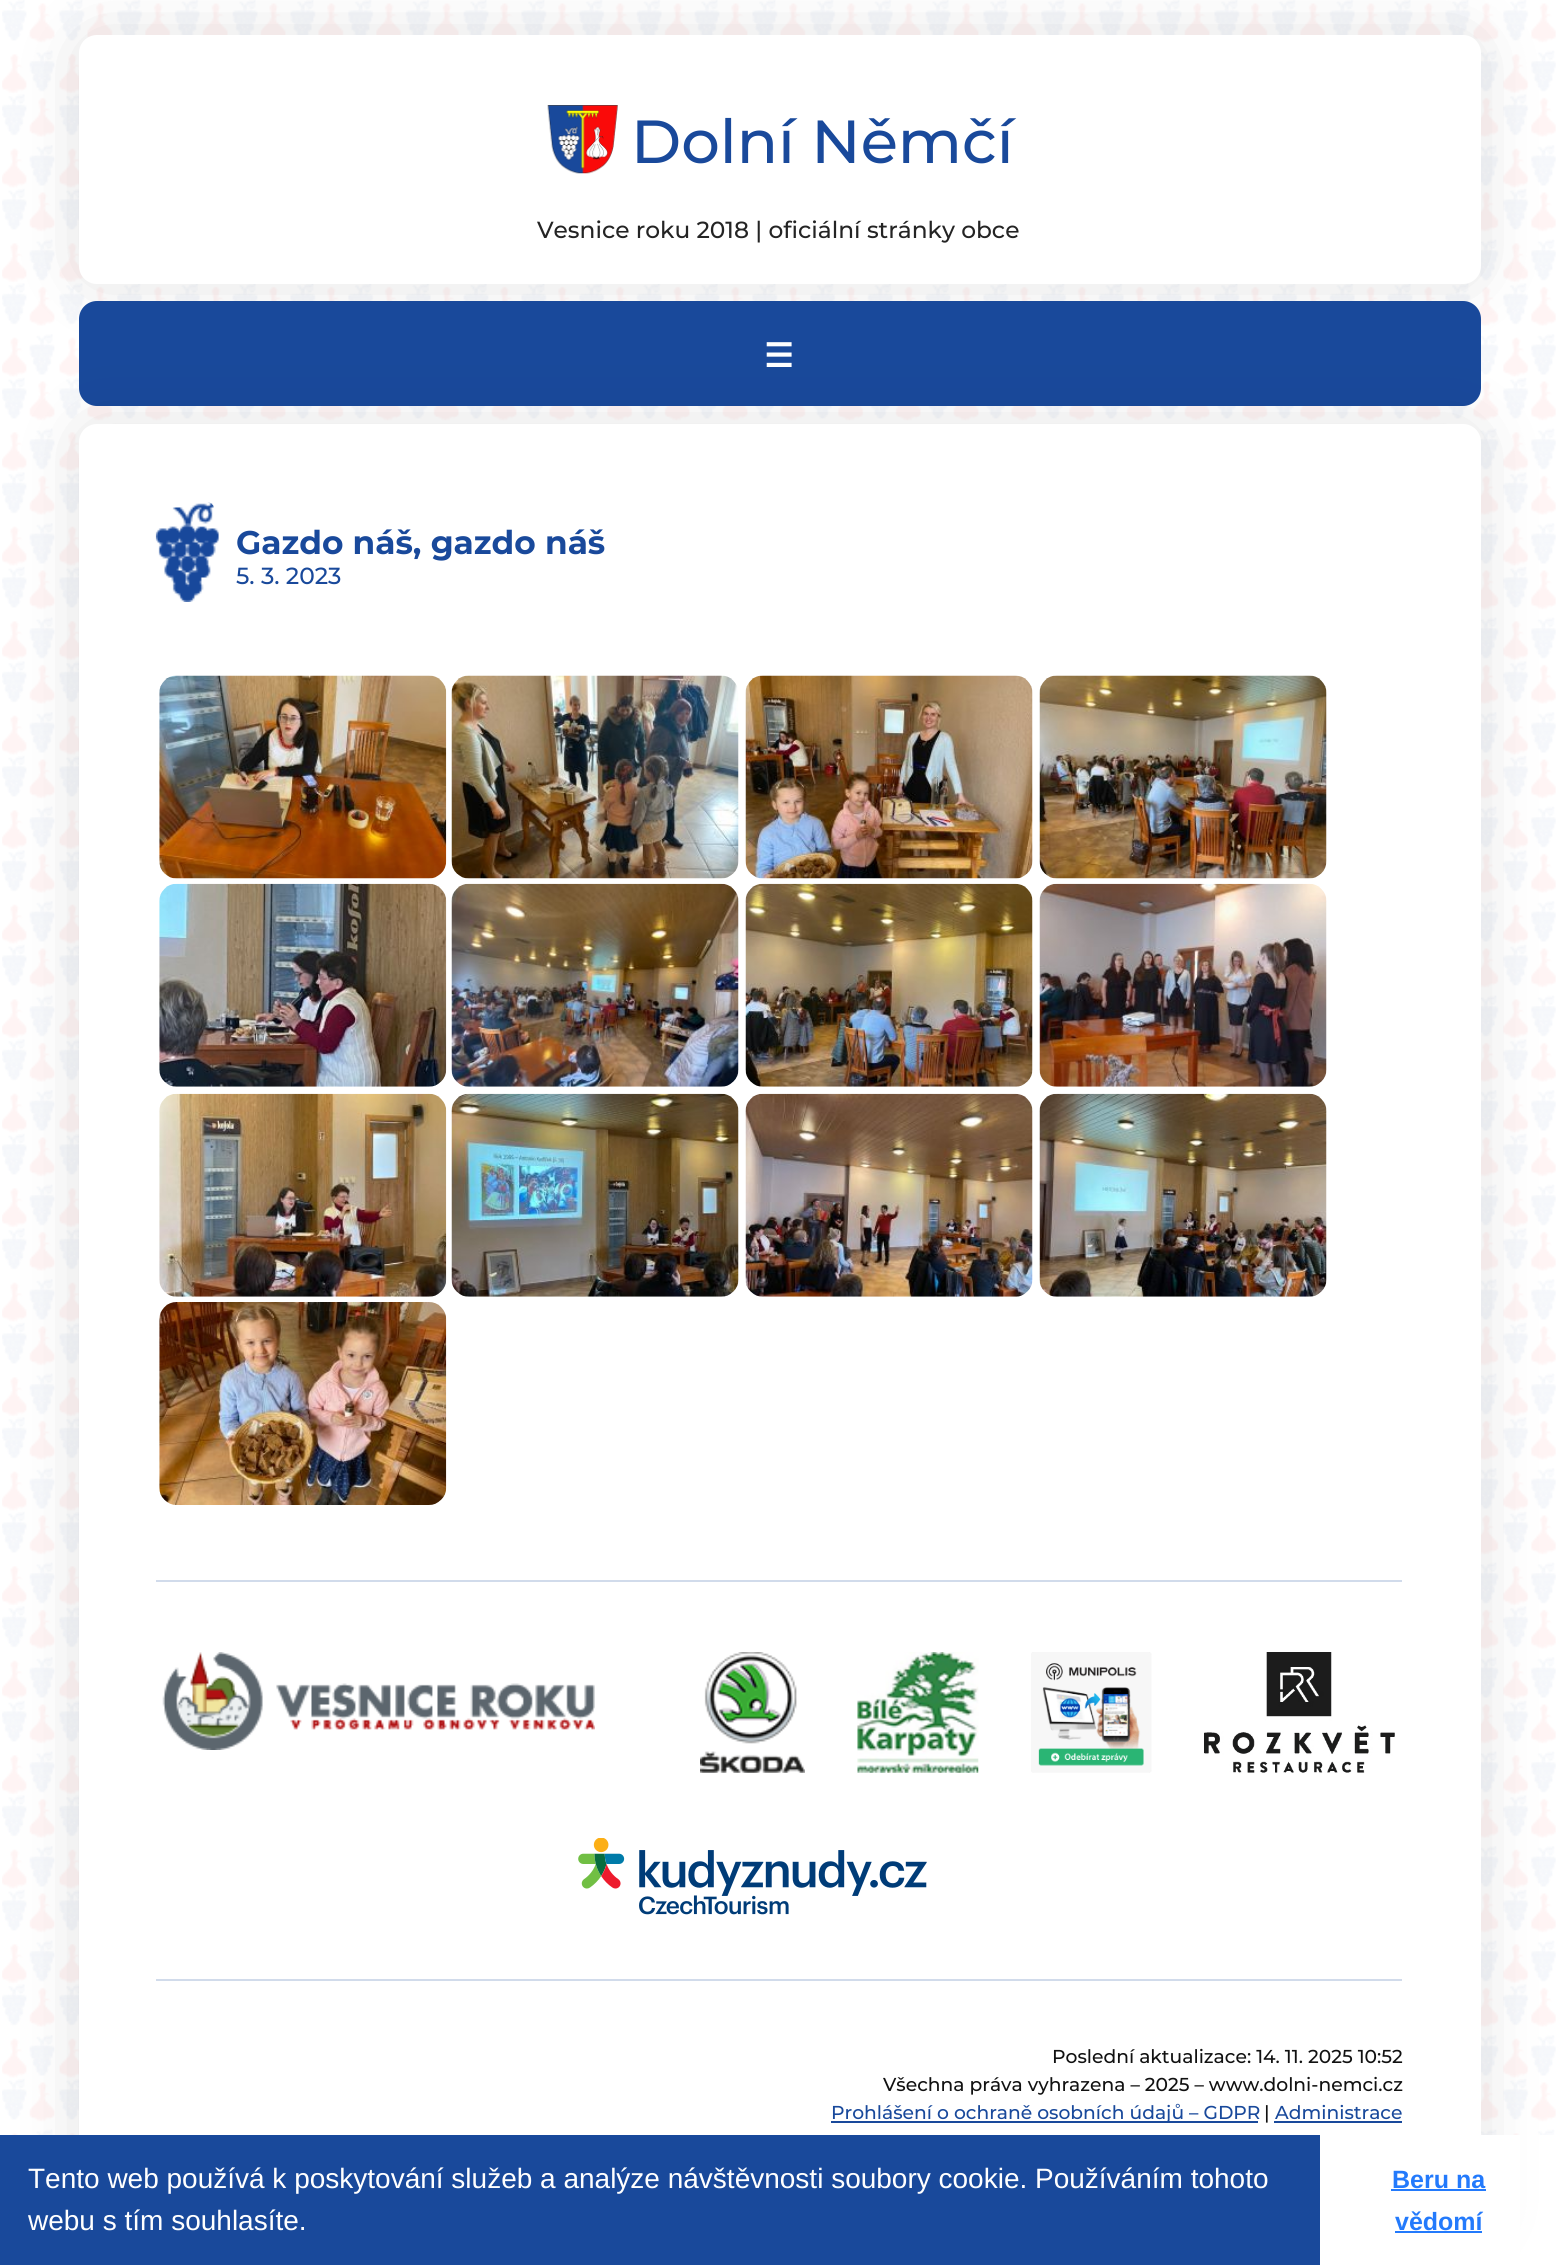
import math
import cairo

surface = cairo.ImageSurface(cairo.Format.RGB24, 1556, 2265)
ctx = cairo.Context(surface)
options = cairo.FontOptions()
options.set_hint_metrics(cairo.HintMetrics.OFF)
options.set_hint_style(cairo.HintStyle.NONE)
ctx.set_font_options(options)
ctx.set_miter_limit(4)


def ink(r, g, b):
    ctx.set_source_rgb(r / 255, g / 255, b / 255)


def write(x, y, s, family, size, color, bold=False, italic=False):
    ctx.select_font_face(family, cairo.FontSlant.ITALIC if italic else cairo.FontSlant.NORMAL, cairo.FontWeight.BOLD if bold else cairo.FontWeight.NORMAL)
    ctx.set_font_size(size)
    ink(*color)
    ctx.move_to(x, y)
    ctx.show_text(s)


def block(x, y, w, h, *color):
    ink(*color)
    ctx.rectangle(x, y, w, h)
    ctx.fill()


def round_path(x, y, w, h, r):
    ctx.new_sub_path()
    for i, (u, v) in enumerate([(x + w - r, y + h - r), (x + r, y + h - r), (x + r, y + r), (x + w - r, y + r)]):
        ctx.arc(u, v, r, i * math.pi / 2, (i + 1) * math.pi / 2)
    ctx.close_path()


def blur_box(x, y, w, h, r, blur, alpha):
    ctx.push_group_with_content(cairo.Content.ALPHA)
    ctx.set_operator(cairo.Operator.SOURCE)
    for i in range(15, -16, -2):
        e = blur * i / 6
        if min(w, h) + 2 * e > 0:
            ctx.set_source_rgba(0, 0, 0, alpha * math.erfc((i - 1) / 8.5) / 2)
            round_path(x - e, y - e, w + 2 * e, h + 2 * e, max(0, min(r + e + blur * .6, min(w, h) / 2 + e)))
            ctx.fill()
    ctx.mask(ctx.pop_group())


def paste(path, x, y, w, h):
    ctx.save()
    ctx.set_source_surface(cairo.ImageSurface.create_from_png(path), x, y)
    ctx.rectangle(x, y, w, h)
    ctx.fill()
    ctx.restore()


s1 = dict(family="Montserrat Medium", size=60.75, color=(25, 73, 155))
s2 = dict(family="Montserrat Medium", size=23.3, color=(36, 36, 36))
s3 = dict(family="DejaVu Sans", size=32.75, color=(255, 255, 255), bold=True)
s4 = dict(family="Montserrat", size=32.75, color=(25, 73, 155), bold=True)
s5 = dict(family="Montserrat Medium", size=23.3, color=(25, 73, 155))
s6 = dict(family="Montserrat Medium", size=18.7, color=(17, 17, 17))
s7 = dict(family="Montserrat Medium", size=18.7, color=(25, 73, 155))
s8 = dict(family="Liberation Sans", size=28, color=(255, 255, 255))
s9 = dict(family="Liberation Sans", size=25, color=(35, 122, 252), bold=True)

ink(255, 255, 255)
ctx.paint()
paste("pic1.png", 2, 0, 1554, 2135)
ink(0, 0, 0)
blur_box(96, 53, 1367, 213, 0, 35, 0.2)
ink(255, 255, 255)
round_path(79, 35, 1402, 249, 18)
ctx.fill()
paste("pic2.png", 547, 105, 71, 69)
write(631, 163, "Dolní Němčí", **s1)
write(537, 238, "Vesnice roku 2018 | oficiální stránky obce", **s2)
ink(25, 73, 155)
round_path(79, 301, 1402, 105, 18)
ctx.fill()
ink(0, 0, 0)
blur_box(96, 441, 1367, 1775, 0, 35, 0.2)
write(764, 367, "☰", **s3)
round_path(79, 424, 1402, 1809, 18)
ctx.fill()
paste("pic3.png", 155, 502, 64, 100)
write(236, 554, "Gazdo náš, gazdo náš", **s4)
write(236, 584, "5. 3. 2023", **s5)
paste("pic4.png", 159, 675, 288, 204)
paste("pic5.png", 451, 675, 288, 204)
paste("pic6.png", 745, 675, 288, 204)
paste("pic7.png", 1039, 675, 288, 204)
paste("pic8.png", 159, 883, 288, 204)
paste("pic9.png", 451, 883, 288, 204)
paste("pic10.png", 745, 883, 288, 204)
paste("pic11.png", 1039, 883, 288, 204)
paste("pic12.png", 159, 1093, 288, 204)
paste("pic13.png", 451, 1093, 288, 204)
paste("pic14.png", 745, 1093, 288, 204)
paste("pic15.png", 1039, 1093, 288, 204)
paste("pic16.png", 159, 1302, 288, 203)
block(156, 1580, 1246, 2, 209, 219, 235)
paste("pic17.png", 162, 1652, 433, 98)
paste("pic18.png", 700, 1652, 105, 121)
paste("pic19.png", 857, 1652, 122, 121)
paste("pic20.png", 1031, 1652, 121, 121)
paste("pic21.png", 1204, 1652, 191, 121)
paste("pic22.png", 578, 1838, 349, 77)
block(156, 1979, 1246, 2, 209, 219, 235)
write(1052, 2063, "Poslední aktualizace: 14. 11. 2025 10:52", **s6)
write(883, 2091, "Všechna práva vyhrazena – 2025 – www.dolni-nemci.cz", **s6)
block(831, 2121, 427, 2, 25, 73, 155)
write(831, 2119, "Prohlášení o ochraně osobních údajů – GDPR", **s7)
write(1264, 2119, "|", **s6)
write(1275, 2119, "Administrace", **s7)
block(1274, 2121, 128, 2, 25, 73, 155)
block(0, 2135, 1320, 130, 25, 73, 155)
write(28, 2188, "Tento web používá k poskytování služeb a analýze návštěvnosti soubory cookie. Používáním tohoto", **s8)
write(28, 2230, "webu s tím souhlasíte.", **s8)
block(1320, 2135, 200, 130, 255, 255, 255)
write(1392, 2188, "Beru na", **s9)
block(1391, 2189, 95, 2, 35, 122, 252)
write(1395, 2230, "vědomí", **s9)
block(1395, 2231, 87, 2, 35, 122, 252)
surface.write_to_png("screenshot.png")
